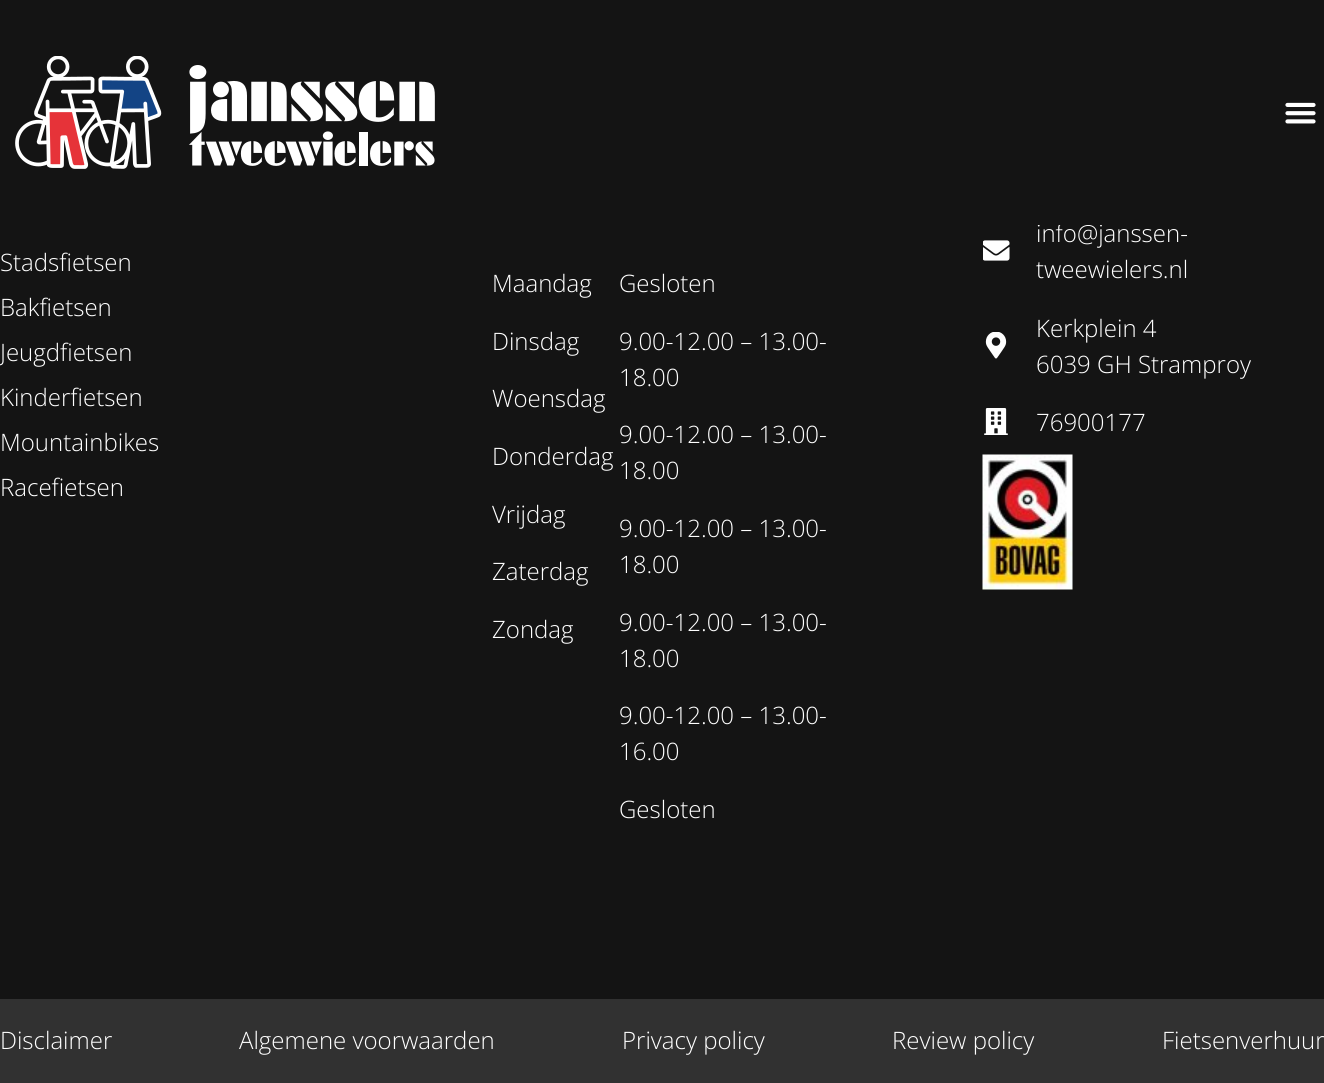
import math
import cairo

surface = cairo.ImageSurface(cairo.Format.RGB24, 1324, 1083)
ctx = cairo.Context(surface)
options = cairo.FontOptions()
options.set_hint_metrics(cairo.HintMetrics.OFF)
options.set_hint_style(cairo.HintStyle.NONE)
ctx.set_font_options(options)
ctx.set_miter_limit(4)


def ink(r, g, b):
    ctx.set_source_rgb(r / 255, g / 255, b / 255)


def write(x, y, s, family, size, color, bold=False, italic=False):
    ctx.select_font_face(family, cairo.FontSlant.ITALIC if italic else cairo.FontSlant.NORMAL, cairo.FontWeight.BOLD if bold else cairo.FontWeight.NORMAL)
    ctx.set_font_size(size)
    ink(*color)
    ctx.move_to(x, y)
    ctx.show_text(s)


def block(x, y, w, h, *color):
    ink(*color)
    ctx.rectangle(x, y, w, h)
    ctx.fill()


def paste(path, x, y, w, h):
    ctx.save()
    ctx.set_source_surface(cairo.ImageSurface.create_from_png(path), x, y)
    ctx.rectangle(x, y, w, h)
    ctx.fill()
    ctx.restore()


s1 = dict(family="Open Sans Light", size=24, color=(255, 255, 255))

ink(20, 20, 20)
ctx.paint()
write(1036, 242, "info@janssen-", **s1)
block(1038, 223, 64, 2, 20, 20, 20)
paste("pic1.png", 15, 56, 420, 113)
paste("pic2.png", 1285, 102, 31, 22)
write(0, 271, "Stadsfietsen", **s1)
write(0, 316, "Bakfietsen", **s1)
write(0, 361, "Jeugdfietsen", **s1)
write(0, 406, "Kinderfietsen", **s1)
write(0, 451, "Mountainbikes", **s1)
write(0, 496, "Racefietsen", **s1)
write(492, 292, "Maandag", **s1)
write(492, 350, "Dinsdag", **s1)
write(492, 407, "Woensdag", **s1)
write(492, 465, "Donderdag", **s1)
write(492, 523, "Vrijdag", **s1)
write(492, 580, "Zaterdag", **s1)
write(492, 638, "Zondag", **s1)
write(619, 292, "Gesloten", **s1)
write(619, 350, "9.00-12.00 – 13.00-", **s1)
write(619, 386, "18.00", **s1)
write(619, 443, "9.00-12.00 – 13.00-", **s1)
write(619, 479, "18.00", **s1)
write(619, 537, "9.00-12.00 – 13.00-", **s1)
write(619, 573, "18.00", **s1)
write(619, 631, "9.00-12.00 – 13.00-", **s1)
write(619, 667, "18.00", **s1)
write(619, 724, "9.00-12.00 – 13.00-", **s1)
write(619, 760, "16.00", **s1)
write(619, 818, "Gesloten", **s1)
paste("pic3.png", 983, 240, 27, 21)
write(1036, 278, "tweewielers.nl", **s1)
paste("pic4.png", 985, 332, 22, 27)
write(1036, 337, "Kerkplein 4", **s1)
write(1036, 373, "6039 GH Stramproy", **s1)
paste("pic5.png", 984, 408, 24, 27)
write(1036, 431, "76900177", **s1)
paste("pic6.png", 982, 454, 91, 136)
block(0, 999, 1324, 84, 49, 49, 49)
write(0, 1049, "Disclaimer", **s1)
write(239, 1049, "Algemene voorwaarden", **s1)
write(622, 1049, "Privacy policy", **s1)
write(892, 1049, "Review policy", **s1)
write(1162, 1049, "Fietsenverhuur", **s1)
surface.write_to_png("screenshot.png")
